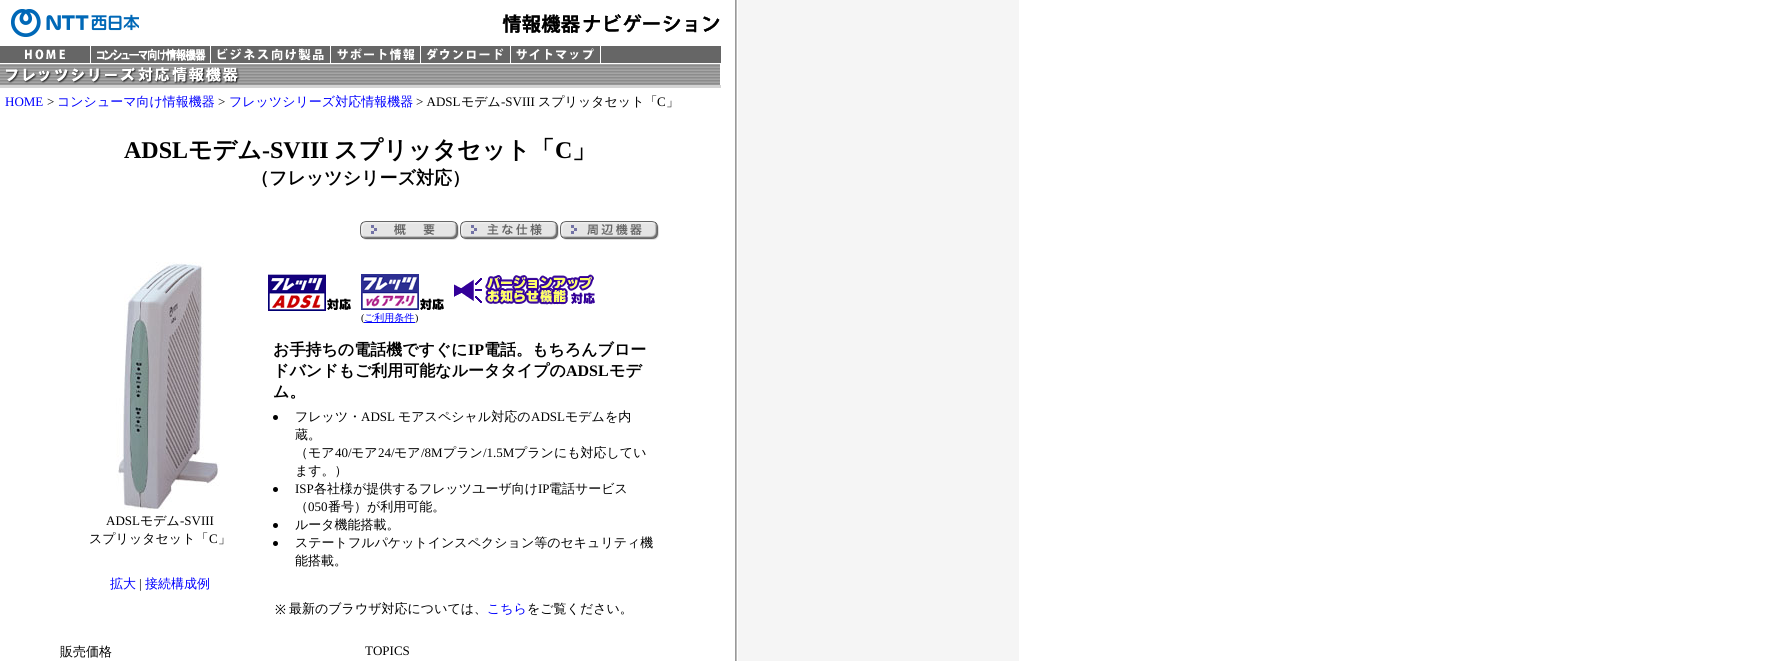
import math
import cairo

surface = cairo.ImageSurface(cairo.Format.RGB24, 1783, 661)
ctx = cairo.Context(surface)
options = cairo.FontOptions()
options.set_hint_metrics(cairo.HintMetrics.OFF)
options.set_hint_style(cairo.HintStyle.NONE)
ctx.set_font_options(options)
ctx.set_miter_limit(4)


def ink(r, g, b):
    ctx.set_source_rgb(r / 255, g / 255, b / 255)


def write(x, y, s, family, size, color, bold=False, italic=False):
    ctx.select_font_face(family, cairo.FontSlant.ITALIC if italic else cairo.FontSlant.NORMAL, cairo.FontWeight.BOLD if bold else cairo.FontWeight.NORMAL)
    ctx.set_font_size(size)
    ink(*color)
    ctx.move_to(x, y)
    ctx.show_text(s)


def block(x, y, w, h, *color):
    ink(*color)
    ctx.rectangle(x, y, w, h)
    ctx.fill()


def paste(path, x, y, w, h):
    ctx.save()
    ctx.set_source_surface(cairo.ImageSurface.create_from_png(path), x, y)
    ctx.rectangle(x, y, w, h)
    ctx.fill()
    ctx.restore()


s1 = dict(family="Liberation Serif", size=13, color=(0, 0, 255))
s2 = dict(family="Liberation Serif", size=13, color=(0, 0, 0))
s3 = dict(family="WenQuanYi Zen Hei Medium", size=13, color=(0, 0, 255))
s4 = dict(family="WenQuanYi Zen Hei Medium", size=13, color=(0, 0, 0))
s5 = dict(family="Liberation Serif", size=24, color=(0, 0, 0), bold=True)
s6 = dict(family="WenQuanYi Zen Hei", size=24, color=(0, 0, 0), bold=True)
s7 = dict(family="WenQuanYi Zen Hei", size=18, color=(0, 0, 0), bold=True)
s8 = dict(family="Liberation Serif", size=10, color=(0, 0, 0))
s9 = dict(family="WenQuanYi Zen Hei Medium", size=10, color=(0, 0, 255))
s10 = dict(family="WenQuanYi Zen Hei", size=16, color=(0, 0, 0), bold=True)
s11 = dict(family="Liberation Serif", size=16, color=(0, 0, 0), bold=True)
s12 = dict(family="Noto Sans", size=13, color=(0, 0, 0))

ink(255, 255, 255)
ctx.paint()
paste("pic1.png", 735, 0, 284, 661)
paste("pic2.png", 0, 9, 151, 37)
paste("pic3.png", 502, 14, 218, 19)
paste("pic4.png", 0, 46, 90, 17)
paste("pic5.png", 90, 46, 120, 17)
paste("pic6.png", 211, 46, 119, 17)
paste("pic7.png", 331, 46, 89, 17)
paste("pic8.png", 421, 46, 89, 17)
paste("pic9.png", 511, 46, 89, 17)
block(601, 46, 120, 17, 102, 102, 102)
paste("pic10.png", 0, 64, 720, 21)
block(0, 85, 721, 3, 212, 212, 212)
write(5, 106, "HOME", **s1)
write(47, 106, ">", **s2)
write(57, 106, "コンシューマ向け情報機器", **s3)
write(218, 106, ">", **s2)
write(229, 106, "フレッツシリーズ対応情報機器", **s3)
write(416, 106, "> ADSL", **s2)
write(461, 106, "モデム", **s4)
write(501, 106, "-SVIII", **s2)
write(538, 106, "スプリッタセット「", **s4)
write(657, 106, "C", **s2)
write(666, 106, "」", **s4)
write(124, 158, "ADSL", **s5)
write(188, 158, "モデム", **s6)
write(262, 158, "-SVIII", **s5)
write(334, 158, "スプリッタセット「", **s6)
write(555, 158, "C", **s5)
write(572, 158, "」", **s6)
write(251, 184, "（フレッツシリーズ対応）", **s7)
paste("pic11.png", 360, 221, 99, 19)
paste("pic12.png", 460, 221, 99, 19)
paste("pic13.png", 560, 221, 99, 19)
paste("pic14.png", 116, 262, 104, 248)
write(106, 525, "ADSL", **s2)
write(140, 525, "モデム", **s4)
write(180, 525, "-SVIII", **s2)
write(89, 543, "スプリッタセット「", **s4)
write(209, 543, "C", **s2)
write(218, 543, "」", **s4)
write(110, 588, "拡大", **s3)
write(139, 588, "|", **s2)
write(145, 588, "接続構成例", **s3)
paste("pic15.png", 268, 274, 83, 37)
paste("pic16.png", 454, 274, 141, 31)
paste("pic17.png", 361, 274, 83, 36)
write(361, 321, "(", **s8)
block(364, 322, 51, 1, 0, 0, 255)
write(364, 321, "ご利用条件", **s9)
write(415, 321, ")", **s8)
write(273, 355, "お手持ちの電話機ですぐに", **s10)
write(468, 355, "IP", **s11)
write(484, 355, "電話。もちろんブロー", **s10)
write(273, 376, "ドバンドもご利用可能なルータタイプの", **s10)
write(566, 376, "ADSL", **s11)
write(609, 376, "モデ", **s10)
write(273, 397, "ム。", **s10)
ctx.new_path()
ctx.arc(275.5, 417.5, 2.5, 0, 2 * math.pi)
ctx.fill()
write(295, 421, "フレッツ・", **s4)
write(361, 421, "ADSL", **s2)
write(398, 421, "モアスペシャル対応の", **s4)
write(531, 421, "ADSL", **s2)
write(565, 421, "モデムを内", **s4)
write(295, 439, "蔵。", **s4)
write(295, 457, "（モア", **s4)
write(335, 457, "40/", **s2)
write(351, 457, "モア", **s4)
write(378, 457, "24/", **s2)
write(394, 457, "モア", **s4)
write(421, 457, "/8M", **s2)
write(443, 457, "プラン", **s4)
write(483, 457, "/1.5M", **s2)
write(514, 457, "プランにも対応してい", **s4)
write(295, 475, "ます。）", **s4)
ctx.new_path()
ctx.arc(275.5, 489.5, 2.5, 0, 2 * math.pi)
ctx.fill()
write(295, 493, "ISP", **s2)
write(314, 493, "各社様が提供するフレッツユーザ向け", **s4)
write(538, 493, "IP", **s2)
write(549, 493, "電話サービス", **s4)
write(295, 511, "（", **s4)
write(308, 511, "050", **s2)
write(328, 511, "番号）が利用可能。", **s4)
ctx.new_path()
ctx.arc(275.5, 525.5, 2.5, 0, 2 * math.pi)
ctx.fill()
write(295, 529, "ルータ機能搭載。", **s4)
ctx.new_path()
ctx.arc(275.5, 543.5, 2.5, 0, 2 * math.pi)
ctx.fill()
write(295, 547, "ステートフルパケットインスペクション等のセキュリティ機", **s4)
write(295, 565, "能搭載。", **s4)
write(275, 614, "※", **s12)
write(289, 613, "最新のブラウザ対応については、", **s4)
write(487, 613, "こちら", **s3)
write(527, 613, "をご覧ください。", **s4)
write(60, 656, "販売価格", **s4)
write(365, 655, "TOPICS", **s2)
surface.write_to_png("screenshot.png")
